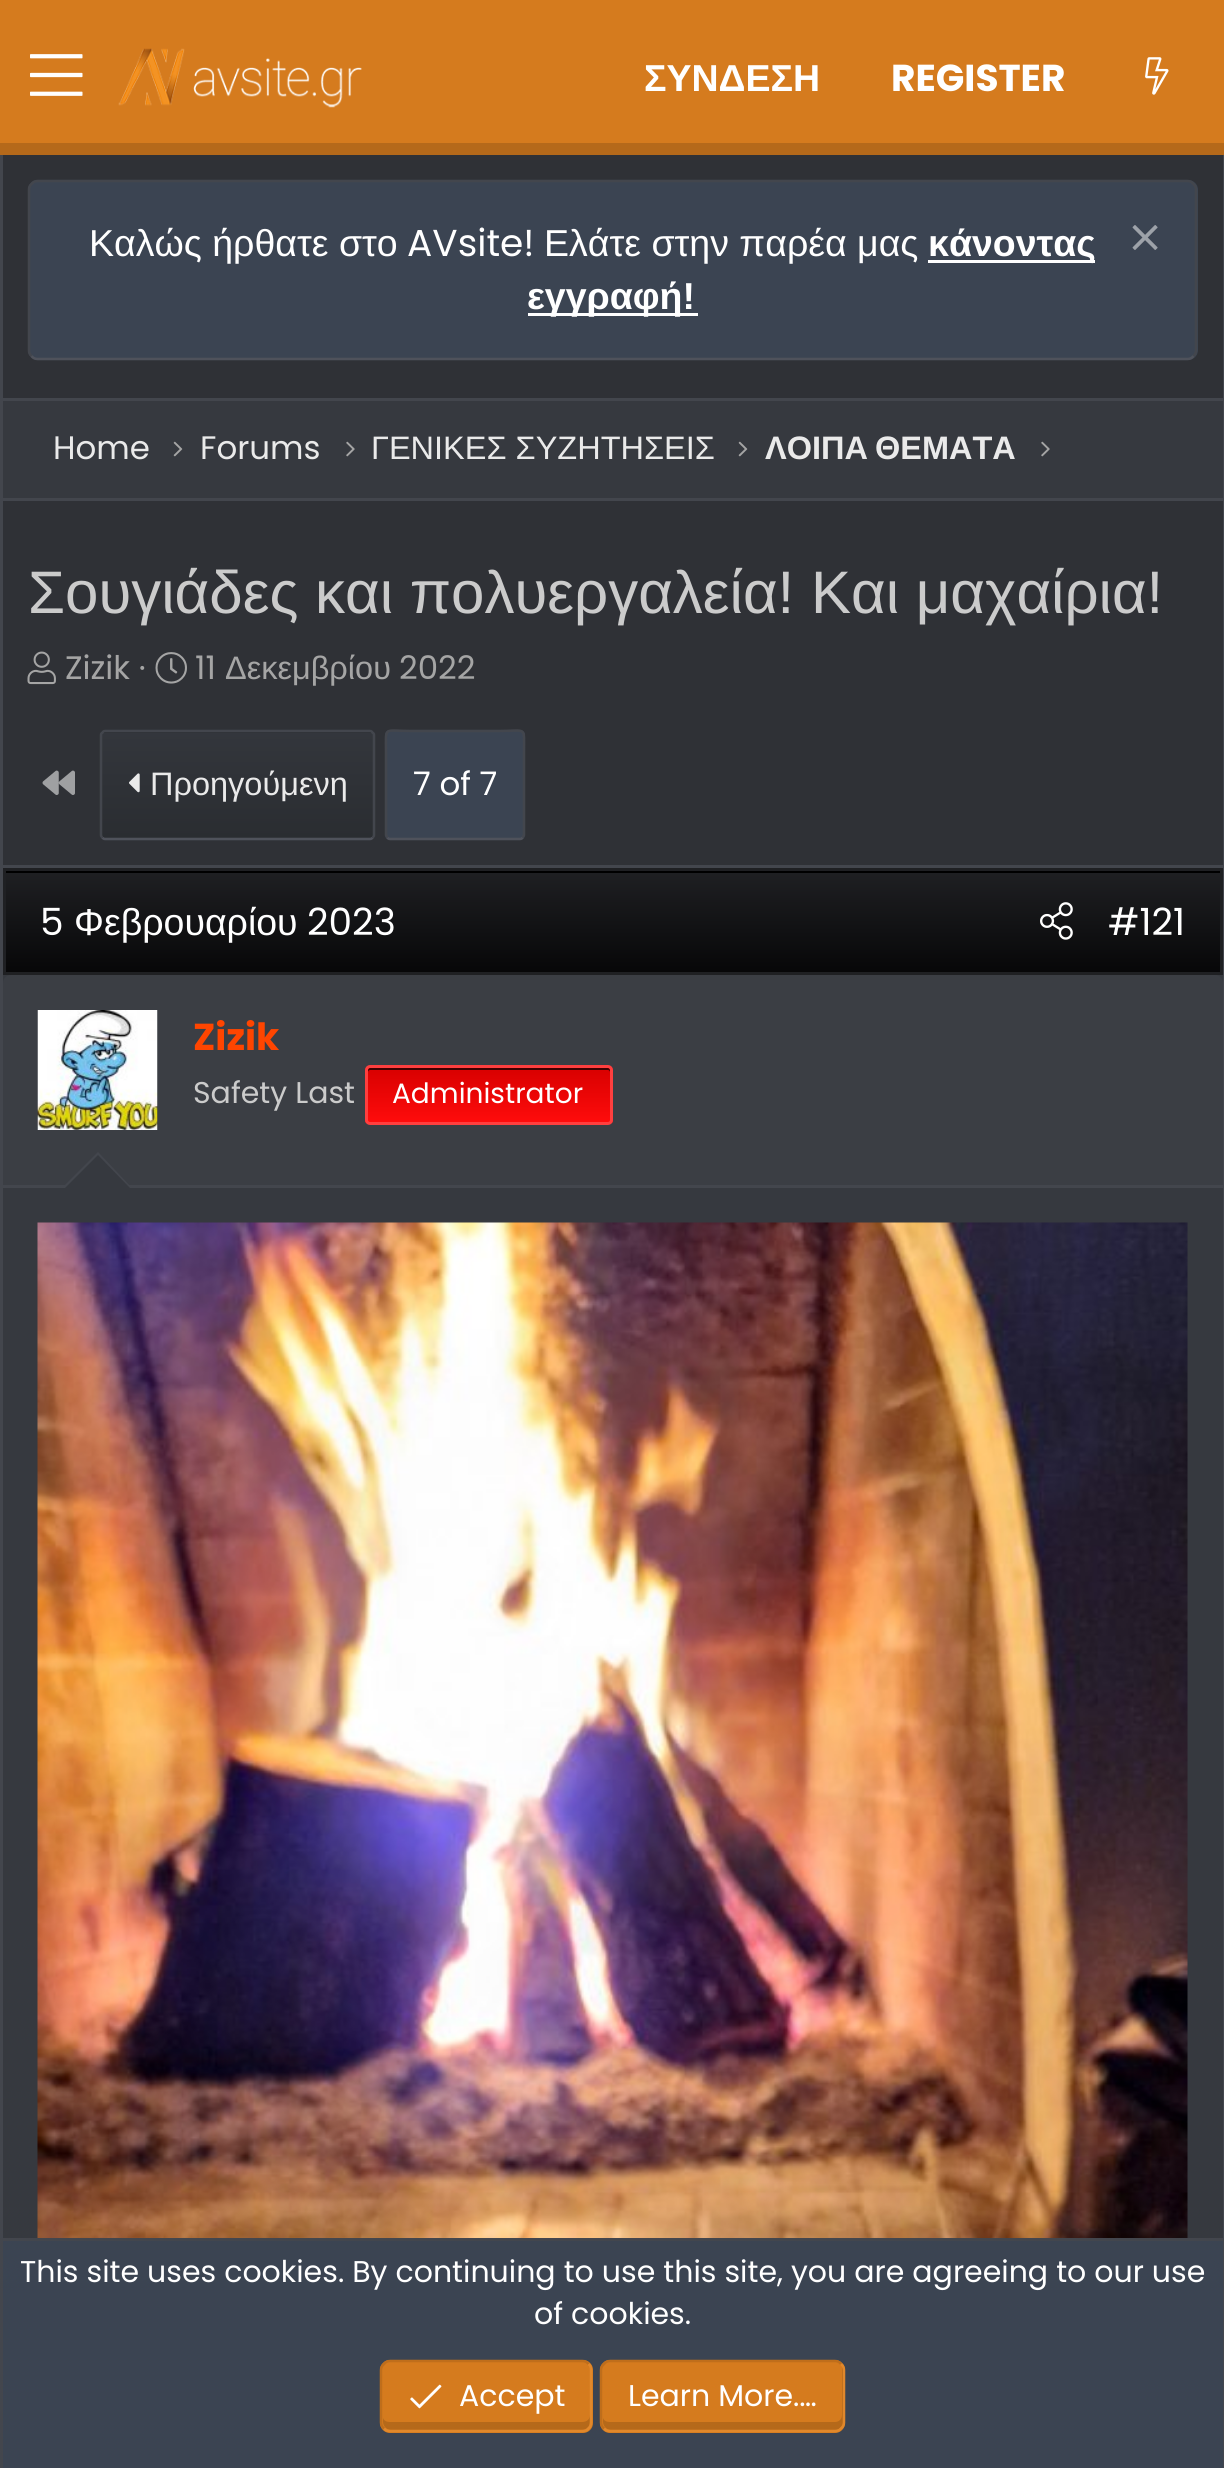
import math
import cairo

surface = cairo.ImageSurface(cairo.Format.RGB24, 1224, 2468)
ctx = cairo.Context(surface)
options = cairo.FontOptions()
options.set_hint_metrics(cairo.HintMetrics.OFF)
options.set_hint_style(cairo.HintStyle.NONE)
ctx.set_font_options(options)
ctx.set_miter_limit(4)


def ink(r, g, b):
    ctx.set_source_rgb(r / 255, g / 255, b / 255)


def write(x, y, s, family, size, color, bold=False, italic=False):
    ctx.select_font_face(family, cairo.FontSlant.ITALIC if italic else cairo.FontSlant.NORMAL, cairo.FontWeight.BOLD if bold else cairo.FontWeight.NORMAL)
    ctx.set_font_size(size)
    ink(*color)
    ctx.move_to(x, y)
    ctx.show_text(s)


def write_spaced(x, y, s, letter, word):
    ctx.move_to(x, y)
    for ch in s:
        ctx.show_text(ch)
        ctx.rel_move_to(letter + word * (ch == ' '), 0)


def block(x, y, w, h, *color):
    ink(*color)
    ctx.rectangle(x, y, w, h)
    ctx.fill()


def round_path(x, y, w, h, r):
    ctx.new_sub_path()
    for i, (u, v) in enumerate([(x + w - r, y + h - r), (x + r, y + h - r), (x + r, y + r), (x + w - r, y + r)]):
        ctx.arc(u, v, r, i * math.pi / 2, (i + 1) * math.pi / 2)
    ctx.close_path()


def paste(path, x, y, w, h):
    ctx.save()
    ctx.set_source_surface(cairo.ImageSurface.create_from_png(path), x, y)
    ctx.rectangle(x, y, w, h)
    ctx.fill()
    ctx.restore()


s1 = dict(family="Liberation Sans", size=37.5, color=(255, 255, 255), bold=True)
s2 = dict(family="Poppins", size=37.5, color=(255, 255, 255), bold=True)
s3 = dict(family="Liberation Sans", size=37.5, color=(255, 255, 255))
s4 = dict(family="Poppins", size=37.5, color=(255, 255, 255))
s5 = dict(family="Poppins", size=32.5, color=(234, 234, 234))
s6 = dict(family="Liberation Sans", size=32.5, color=(234, 234, 234))
s7 = dict(family="Liberation Sans", size=60, color=(203, 203, 203))
s8 = dict(family="Poppins", size=32.5, color=(165, 165, 165))
s9 = dict(family="Liberation Sans", size=32.5, color=(165, 165, 165))
s10 = dict(family="Poppins", size=32.5, color=(255, 255, 255))
s11 = dict(family="Poppins", size=37.5, color=(255, 69, 0), bold=True)
s12 = dict(family="Poppins", size=30, color=(203, 203, 203))
s13 = dict(family="Poppins", size=28, color=(255, 255, 255))
s14 = dict(family="Poppins", size=30, color=(255, 255, 255))

ink(47, 49, 54)
ctx.paint()
block(0, 0, 1224, 143, 213, 123, 30)
block(0, 143, 1224, 12, 181, 105, 26)
paste("pic1.png", 30, 54, 53, 42)
paste("pic2.png", 118, 48, 244, 60)
write(644, 91, "ΣΥΝΔΕΣΗ", **s1)
write(891, 91, "REGISTER", **s2)
paste("pic3.png", 1145, 57, 24, 38)
block(1223, 155, 1, 2083, 67, 70, 77)
block(0, 155, 3, 2083, 67, 70, 77)
ink(59, 68, 82)
round_path(28, 180, 1170, 180, 10)
ctx.fill()
ctx.new_path()
ctx.move_to(1193.5, 356)
ctx.curve_to(1192, 358, 1190, 359, 1187.5, 359)
ctx.line_to(37.5, 359)
ctx.curve_to(35, 359, 33, 358, 31.5, 356)
ink(79, 82, 91)
ctx.set_line_width(2.5)
ctx.stroke()
ctx.new_path()
ctx.move_to(31.5, 356)
ctx.curve_to(29.5, 354.5, 29, 352.5, 29, 350)
ctx.line_to(29, 190)
ctx.curve_to(29, 187.5, 29.5, 185.5, 31.5, 184)
ctx.curve_to(33, 182, 35, 181, 37.5, 181)
ctx.line_to(1187.5, 181)
ctx.curve_to(1190, 181, 1192, 182, 1193.5, 184)
ctx.curve_to(1195.5, 185.5, 1196, 187.5, 1196, 190)
ctx.line_to(1196, 350)
ctx.curve_to(1196, 352.5, 1195.5, 354.5, 1193.5, 356)
ink(67, 70, 77)
ctx.stroke()
write(89, 256, "Καλώς ήρθατε στο", **s3)
write(407, 256, "AVsite!", **s4)
write(544, 256, "Ελάτε στην παρέα μας", **s3)
block(928, 260, 167, 3, 255, 255, 255)
write(928, 256, "κάνοντας", **s1)
block(528, 313, 170, 3, 255, 255, 255)
write(527, 309, "εγγραφή!", **s1)
paste("pic4.png", 1132, 225, 26, 25)
block(3, 401, 1220, 97, 54, 57, 63)
block(3, 398, 1220, 3, 67, 70, 77)
block(3, 498, 1220, 3, 67, 70, 77)
write(53, 459, "Home", **s5)
paste("pic5.png", 173, 441, 10, 16)
write(200, 459, "Forums", **s5)
paste("pic6.png", 346, 441, 9, 16)
write(371, 459, "ΓΕΝΙΚΕΣ ΣΥΖΗΤΗΣΕΙΣ", **s6)
paste("pic5.png", 738, 441, 10, 16)
ctx.select_font_face("Liberation Sans", cairo.FontSlant.NORMAL, cairo.FontWeight.BOLD)
write_spaced(765, 459, "ΛΟΙΠΑ ΘΕΜΑΤΑ", 0, -2)
paste("pic6.png", 1041, 441, 9, 16)
write(28, 613, "Σουγιάδες και πολυεργαλεία! Και μαχαίρια!", **s7)
paste("pic7.png", 27, 651, 29, 34)
write(65, 679, "Zizik ·", **s8)
paste("pic8.png", 155, 652, 32, 32)
write(195, 679, "11", **s8)
write(225, 679, "Δεκεμβρίου", **s9)
write(399, 679, "2022", **s8)
paste("pic9.png", 42, 770, 33, 25)
ctx.save()
round_path(100, 730, 275, 110, 5)
ctx.clip()
gradient = cairo.LinearGradient(238, 733, 238, 628)
gradient.add_color_stop_rgba(0, 0.165, 0.176, 0.192, 1)
gradient.add_color_stop_rgba(1, 0.2, 0.212, 0.235, 1)
ctx.set_source(gradient)
ctx.rectangle(100, 730, 275, 3)
ctx.fill()
gradient = cairo.LinearGradient(238, 838, 238, 733)
gradient.add_color_stop_rgba(0, 0.165, 0.176, 0.192, 1)
gradient.add_color_stop_rgba(1, 0.2, 0.212, 0.235, 1)
ctx.set_source(gradient)
ctx.rectangle(100, 733, 275, 105)
ctx.fill()
ctx.restore()
ctx.new_path()
ctx.move_to(372.5, 837.5)
ctx.curve_to(372, 838.5, 371, 839, 370, 839)
ctx.line_to(105, 839)
ctx.curve_to(104, 839, 103, 838.5, 102.5, 837.5)
ink(79, 82, 91)
ctx.stroke()
ctx.new_path()
ctx.move_to(102.5, 837.5)
ctx.curve_to(101.5, 837, 101, 836, 101, 835)
ctx.line_to(101, 735)
ctx.curve_to(101, 734, 101.5, 733, 102.5, 732.5)
ctx.curve_to(103, 731.5, 104, 731, 105, 731)
ctx.line_to(370, 731)
ctx.curve_to(371, 731, 372, 731.5, 372.5, 732.5)
ctx.curve_to(373.5, 733, 374, 734, 374, 735)
ctx.line_to(374, 835)
ctx.curve_to(374, 836, 373.5, 837, 372.5, 837.5)
ink(67, 70, 77)
ctx.stroke()
paste("pic10.png", 129, 773, 11, 20)
write(150, 795, "Προηγούμενη", **s6)
ink(59, 68, 82)
round_path(385, 730, 140, 110, 5)
ctx.fill()
ctx.new_path()
ctx.move_to(522.5, 837.5)
ctx.curve_to(522, 838.5, 521, 839, 520, 839)
ctx.line_to(390, 839)
ctx.curve_to(389, 839, 388, 838.5, 387.5, 837.5)
ink(79, 82, 91)
ctx.stroke()
ctx.new_path()
ctx.move_to(387.5, 837.5)
ctx.line_to(386, 835)
ctx.line_to(386, 751.5)
ctx.curve_to(386, 725.5, 383, 731, 411.5, 731)
ctx.line_to(498.5, 731)
ctx.curve_to(527, 731, 524, 725.5, 524, 751.5)
ctx.line_to(524, 835)
ctx.line_to(522.5, 837.5)
ink(67, 70, 77)
ctx.stroke()
write(413, 795, "7 of 7", **s10)
block(3, 975, 1220, 1263, 54, 57, 63)
block(3, 865, 1220, 3, 67, 70, 77)
gradient = cairo.LinearGradient(613, 870, 613, 973)
gradient.add_color_stop_rgba(0, 0.122, 0.125, 0.137, 1)
gradient.add_color_stop_rgba(1, 0.027, 0.027, 0.031, 1)
ctx.set_source(gradient)
ctx.rectangle(6, 873, 1214, 99)
ctx.fill()
block(5, 871, 1215, 2, 0, 0, 0)
ctx.rectangle(4.5, 869.5, 1217, 104)
ink(31, 32, 35)
ctx.set_line_width(3)
ctx.stroke()
write(40, 935, "5", **s4)
write(74, 935, "Φεβρουαρίου", **s3)
write(307, 935, "2023", **s4)
paste("pic11.png", 1040, 902, 33, 38)
write(1108, 935, "#121", **s4)
ink(59, 62, 68)
ctx.new_path()
ctx.move_to(11, 975)
ctx.line_to(1215, 975)
ctx.curve_to(1219.5, 975, 1223, 978.5, 1223, 983)
ctx.line_to(1223, 1188)
ctx.line_to(3, 1188)
ctx.line_to(3, 983)
ctx.curve_to(3, 978.5, 6.5, 975, 11, 975)
ctx.close_path()
ctx.fill()
block(3, 1185, 1220, 3, 67, 70, 77)
block(157, 1010, 1, 120, 54, 57, 63)
paste("pic12.png", 37, 1010, 121, 120)
write(193, 1050, "Zizik", **s11)
write(193, 1103, "Safety Last", **s12)
ctx.save()
round_path(365, 1065, 248, 60, 5)
ctx.clip()
gradient = cairo.LinearGradient(489, 1068, 489, 1123)
gradient.add_color_stop_rgba(0, 0.847, 0, 0, 1)
gradient.add_color_stop_rgba(1, 1, 0.047, 0.047, 1)
ctx.set_source(gradient)
ctx.rectangle(365, 1068, 248, 55)
ctx.fill()
ctx.restore()
ink(63, 0, 0)
ctx.new_path()
ctx.move_to(370, 1070)
ctx.line_to(608, 1070)
ctx.curve_to(609, 1070, 610, 1071, 610, 1072)
ctx.line_to(610, 1070)
ctx.curve_to(610, 1069, 609, 1068, 608, 1068)
ctx.line_to(370, 1068)
ctx.curve_to(369, 1068, 368, 1069, 368, 1070)
ctx.line_to(368, 1072)
ctx.curve_to(368, 1071, 369, 1070, 370, 1070)
ctx.close_path()
ctx.fill()
round_path(366.5, 1066.5, 245, 57, 3.5)
ink(255, 63, 63)
ctx.stroke()
write(392, 1103, "Administrator", **s13)
ink(67, 70, 77)
ctx.new_path()
ctx.move_to(132, 1188)
ctx.line_to(62, 1188)
ctx.line_to(98, 1152)
ctx.close_path()
ctx.fill()
ink(54, 57, 63)
ctx.new_path()
ctx.move_to(130, 1188)
ctx.line_to(65, 1188)
ctx.line_to(98, 1155)
ctx.close_path()
ctx.fill()
paste("pic13.png", 37, 1222, 1151, 1016)
block(3, 2241, 1220, 227, 59, 68, 82)
block(0, 2238, 1224, 3, 67, 70, 77)
block(1223, 2238, 1, 230, 67, 70, 77)
block(0, 2238, 3, 230, 67, 70, 77)
write(20, 2282, "This site uses cookies. By continuing to use this site, you are agreeing to our use", **s14)
write(534, 2324, "of cookies.", **s14)
ink(213, 123, 30)
round_path(380, 2360, 213, 73, 10)
ctx.fill()
ink(181, 105, 26)
ctx.new_path()
ctx.move_to(383, 2418)
ctx.line_to(383, 2422)
ctx.curve_to(383, 2426, 387, 2430, 391, 2430)
ctx.line_to(582, 2430)
ctx.curve_to(586, 2430, 590, 2426, 590, 2422)
ctx.line_to(590, 2415)
ctx.curve_to(590, 2419, 587, 2422, 582, 2422)
ctx.line_to(390, 2422)
ctx.curve_to(387, 2422, 384, 2421, 383, 2418)
ctx.close_path()
ctx.fill()
ctx.new_path()
ctx.move_to(588.5, 2364)
ctx.curve_to(590.5, 2365.5, 591, 2367.5, 591, 2370)
ctx.line_to(591, 2422.5)
ctx.curve_to(591, 2425, 590.5, 2427, 588.5, 2428.5)
ctx.curve_to(587, 2430.5, 585, 2431, 582.5, 2431)
ctx.line_to(390, 2431)
ctx.curve_to(387.5, 2431, 385.5, 2430.5, 384, 2428.5)
ink(225, 136, 43)
ctx.set_line_width(2.5)
ctx.stroke()
ctx.new_path()
ctx.move_to(384, 2428.5)
ctx.curve_to(382, 2427, 381, 2425, 381, 2422.5)
ctx.line_to(381, 2370)
ctx.curve_to(381, 2367.5, 382, 2365.5, 384, 2364)
ctx.curve_to(385.5, 2362, 387.5, 2361, 390, 2361)
ctx.line_to(582.5, 2361)
ctx.curve_to(585, 2361, 587, 2362, 588.5, 2364)
ink(191, 110, 27)
ctx.stroke()
paste("pic14.png", 410, 2384, 32, 25)
write(459, 2406, "Accept", **s14)
ink(213, 123, 30)
round_path(600, 2360, 245, 73, 10)
ctx.fill()
ink(181, 105, 26)
ctx.new_path()
ctx.move_to(603, 2418)
ctx.line_to(603, 2422)
ctx.curve_to(603, 2426, 607, 2430, 611, 2430)
ctx.line_to(835, 2430)
ctx.curve_to(839, 2430, 843, 2426, 843, 2422)
ctx.line_to(843, 2371)
ctx.curve_to(843, 2370, 843, 2368, 842, 2367)
ctx.line_to(842, 2415)
ctx.curve_to(842, 2419, 839, 2422, 835, 2422)
ctx.line_to(610, 2422)
ctx.curve_to(607, 2422, 604, 2421, 603, 2418)
ctx.close_path()
ctx.fill()
ctx.new_path()
ctx.move_to(841, 2364)
ctx.curve_to(843, 2365.5, 844, 2367.5, 844, 2370)
ctx.line_to(844, 2422.5)
ctx.curve_to(844, 2425, 843, 2427, 841, 2428.5)
ctx.curve_to(839.5, 2430.5, 837.5, 2431, 835, 2431)
ctx.line_to(610, 2431)
ctx.curve_to(607.5, 2431, 605.5, 2430.5, 604, 2428.5)
ink(225, 136, 43)
ctx.stroke()
ctx.new_path()
ctx.move_to(604, 2428.5)
ctx.curve_to(602, 2427, 601, 2425, 601, 2422.5)
ctx.line_to(601, 2370)
ctx.curve_to(601, 2367.5, 602, 2365.5, 604, 2364)
ctx.curve_to(605.5, 2362, 607.5, 2361, 610, 2361)
ctx.line_to(835, 2361)
ctx.curve_to(837.5, 2361, 839.5, 2362, 841, 2364)
ink(191, 110, 27)
ctx.stroke()
write(628, 2406, "Learn More.…", **s14)
surface.write_to_png("screenshot.png")
